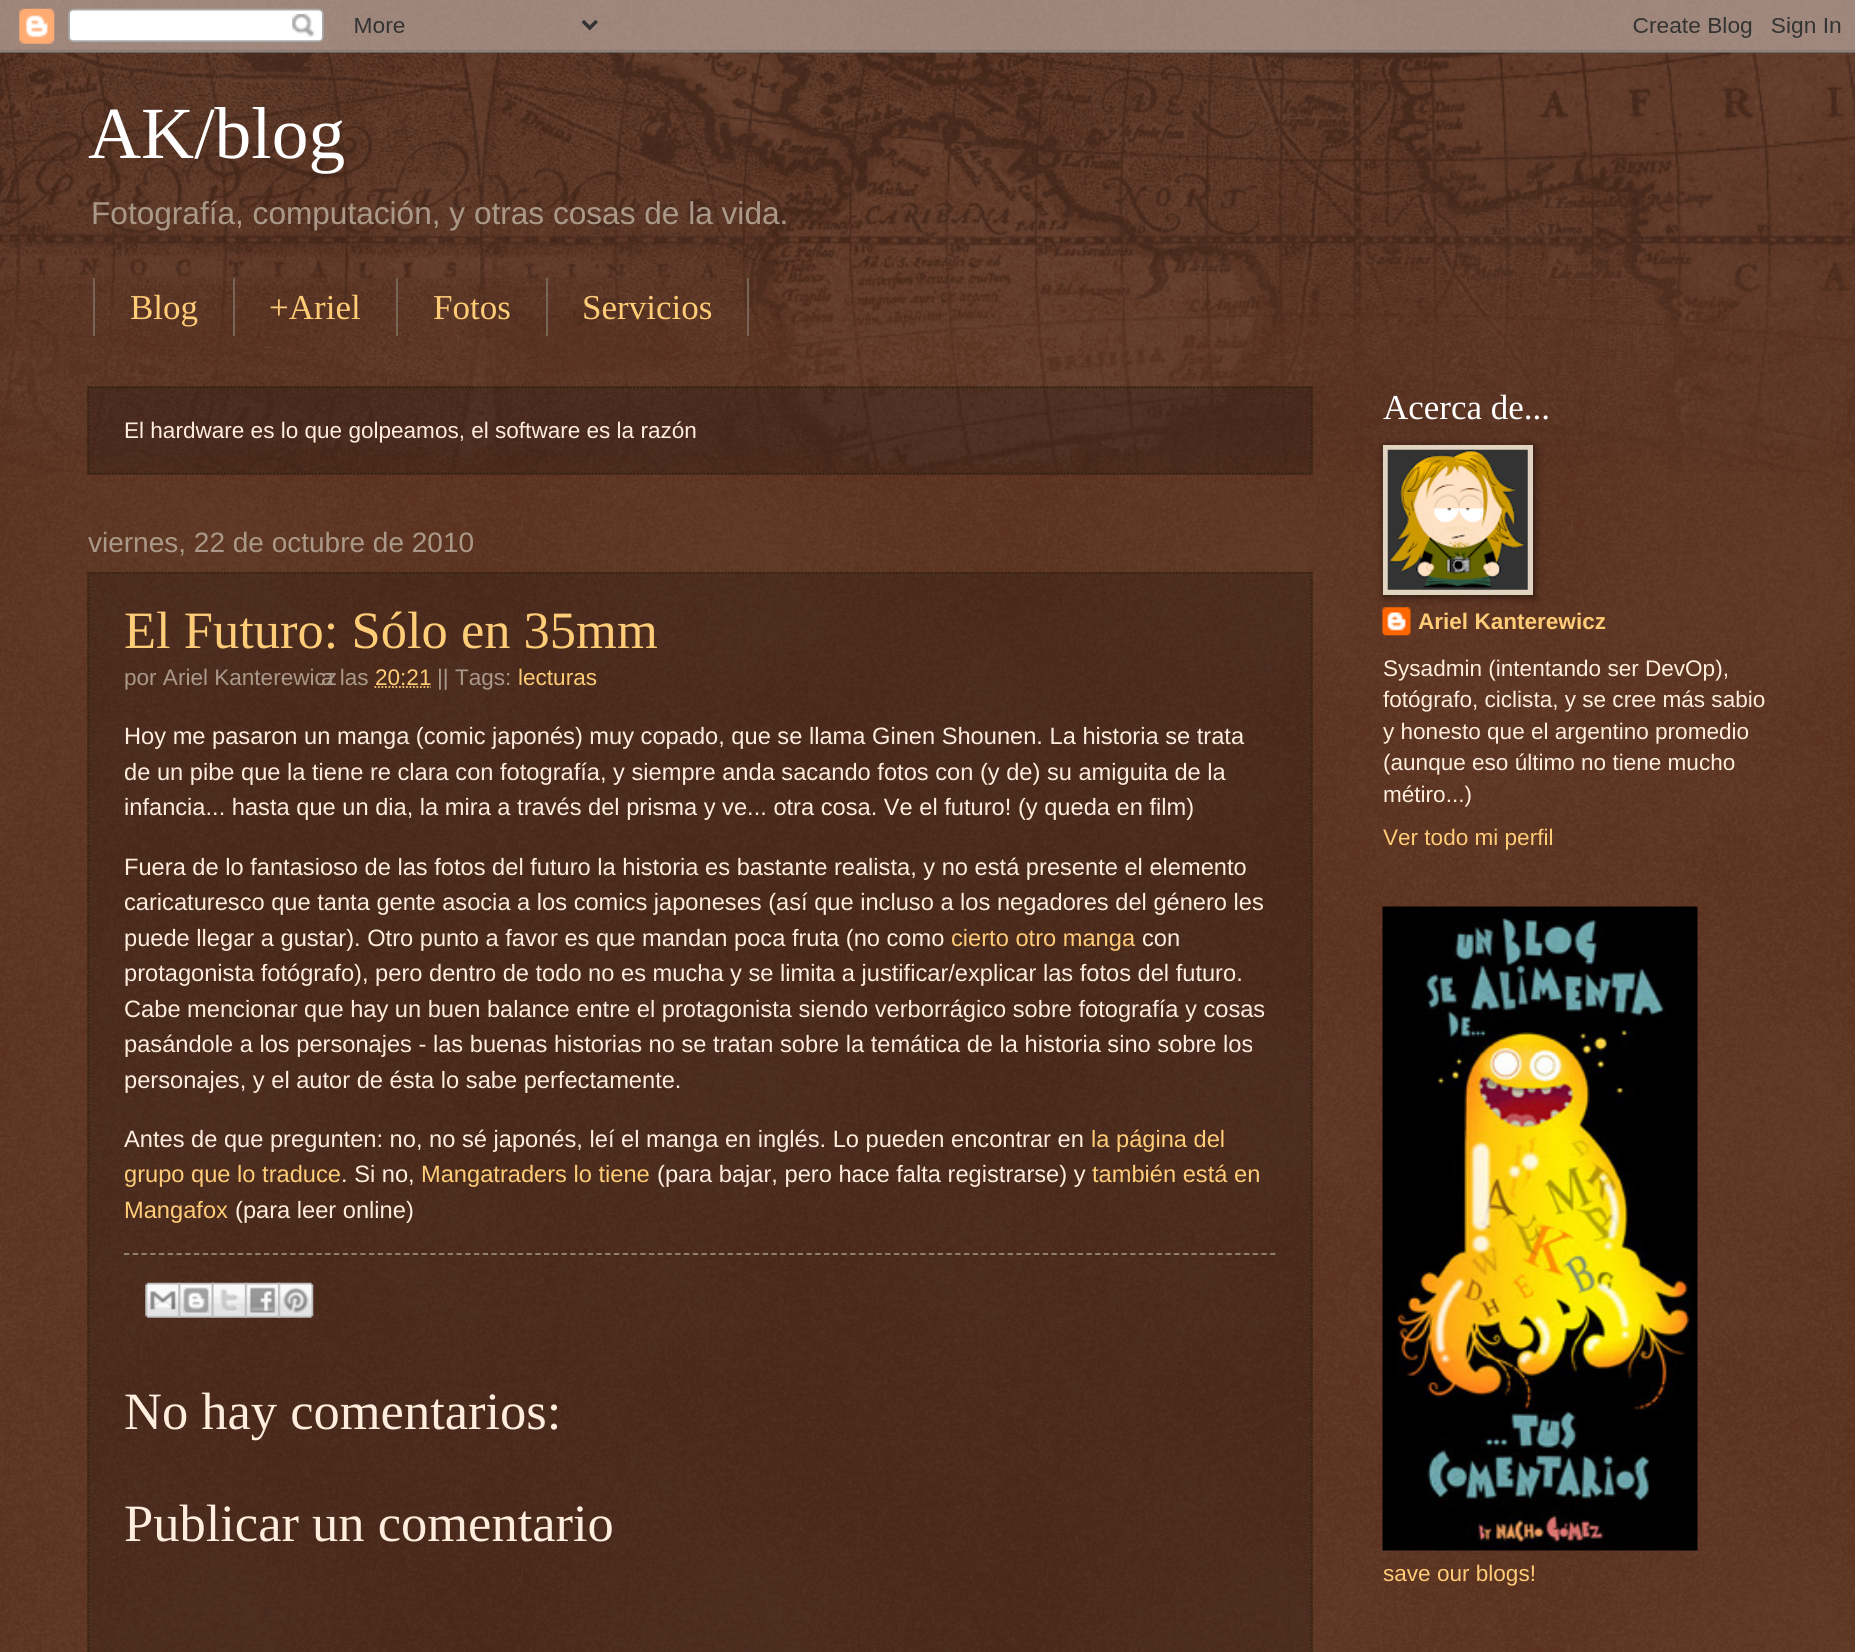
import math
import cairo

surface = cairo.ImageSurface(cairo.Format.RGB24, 1855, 1652)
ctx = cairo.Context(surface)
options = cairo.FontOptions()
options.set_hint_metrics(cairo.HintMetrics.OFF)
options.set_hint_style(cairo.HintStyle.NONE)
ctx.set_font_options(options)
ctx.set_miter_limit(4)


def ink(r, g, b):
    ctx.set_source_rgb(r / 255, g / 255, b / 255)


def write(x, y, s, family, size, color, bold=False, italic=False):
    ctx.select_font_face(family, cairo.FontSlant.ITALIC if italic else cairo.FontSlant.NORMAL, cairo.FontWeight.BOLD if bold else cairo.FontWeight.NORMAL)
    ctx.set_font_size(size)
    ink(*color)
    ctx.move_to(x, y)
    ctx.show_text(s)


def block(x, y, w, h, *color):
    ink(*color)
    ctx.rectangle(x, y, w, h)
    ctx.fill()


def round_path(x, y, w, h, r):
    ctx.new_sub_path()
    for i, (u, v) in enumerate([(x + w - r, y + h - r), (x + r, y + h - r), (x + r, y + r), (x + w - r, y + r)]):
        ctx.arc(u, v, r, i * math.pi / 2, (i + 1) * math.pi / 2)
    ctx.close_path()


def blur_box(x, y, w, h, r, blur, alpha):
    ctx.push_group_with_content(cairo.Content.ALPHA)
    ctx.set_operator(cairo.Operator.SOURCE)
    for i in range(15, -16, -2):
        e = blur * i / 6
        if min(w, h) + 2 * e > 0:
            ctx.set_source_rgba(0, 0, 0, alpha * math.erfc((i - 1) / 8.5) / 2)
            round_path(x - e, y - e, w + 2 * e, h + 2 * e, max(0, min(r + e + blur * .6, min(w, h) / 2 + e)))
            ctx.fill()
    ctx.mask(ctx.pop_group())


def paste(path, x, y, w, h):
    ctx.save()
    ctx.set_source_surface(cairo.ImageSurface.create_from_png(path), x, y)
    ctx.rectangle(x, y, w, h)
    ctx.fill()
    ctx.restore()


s1 = dict(family="Liberation Serif", size=73.5, color=(255, 255, 255))
s2 = dict(family="Liberation Sans", size=31.6, color=(170, 153, 136))
s3 = dict(family="Liberation Serif", size=35, color=(255, 204, 119))
s4 = dict(family="Liberation Sans", size=22.55, color=(255, 238, 221))
s5 = dict(family="Liberation Sans", size=28, color=(170, 153, 136))
s6 = dict(family="Liberation Serif", size=52.5, color=(255, 204, 119))
s7 = dict(family="Liberation Sans", size=22.55, color=(170, 153, 136))
s8 = dict(family="Liberation Sans", size=22.55, color=(255, 204, 119))
s9 = dict(family="Liberation Sans", size=23.65, color=(255, 238, 221))
s10 = dict(family="Liberation Sans", size=23.65, color=(255, 204, 119))
s11 = dict(family="Liberation Serif", size=52.5, color=(255, 238, 221))
s12 = dict(family="Liberation Serif", size=35, color=(255, 255, 255))
s13 = dict(family="Liberation Sans", size=22.55, color=(255, 204, 119), bold=True)

ink(68, 21, 0)
ctx.paint()
paste("pic1.png", 0, 0, 1855, 1652)
paste("pic3.png", 0, 52, 1855, 420)
paste("pic2.png", 0, 0, 1855, 53)
write(88, 158, "AK/blog", **s1)
write(91, 224, "Fotografía, computación, y otras cosas de la vida.", **s2)
block(233, 278, 2, 58, 119, 102, 85)
block(93, 278, 2, 58, 119, 102, 85)
write(130, 319, "Blog", **s3)
block(396, 278, 2, 58, 119, 102, 85)
write(269, 319, "+Ariel", **s3)
block(546, 278, 2, 58, 119, 102, 85)
write(433, 319, "Fotos", **s3)
block(747, 278, 2, 58, 119, 102, 85)
write(582, 319, "Servicios", **s3)
ctx.set_source_rgba(0, 0, 0, 0.2)
ctx.rectangle(87, 386, 1226, 89)
ctx.fill()
ctx.new_path()
ctx.move_to(87.5, 387.5)
ctx.line_to(1312.5, 387.5)
ink(51, 34, 17)
ctx.set_line_width(1.8)
ctx.set_dash([1.75, 1.75])
ctx.stroke()
ctx.new_path()
ctx.move_to(1311.5, 387)
ctx.line_to(1311.5, 474)
ctx.stroke()
ctx.new_path()
ctx.move_to(87.5, 473.5)
ctx.line_to(1312.5, 473.5)
ctx.stroke()
ctx.new_path()
ctx.move_to(88.5, 387)
ctx.line_to(88.5, 474)
ctx.stroke()
write(124, 438, "El hardware es lo que golpeamos, el software es la razón", **s4)
write(88, 552, "viernes, 22 de octubre de 2010", **s5)
ctx.set_source_rgba(0, 0, 0, 0.2)
ctx.rectangle(87, 572, 1226, 1080)
ctx.fill()
ctx.new_path()
ctx.move_to(87.5, 573)
ctx.line_to(1312.5, 573)
ink(51, 34, 17)
ctx.stroke()
ctx.new_path()
ctx.move_to(1311.5, 572)
ctx.line_to(1311.5, 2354)
ctx.stroke()
ctx.new_path()
ctx.move_to(88.5, 572)
ctx.line_to(88.5, 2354)
ctx.stroke()
write(124, 648, "El Futuro: Sólo en 35mm", **s6)
write(124, 685, "por Ariel Kanterewicz", **s7)
write(321, 685, "a las", **s7)
write(375, 685, "20:21", **s8)
ctx.new_path()
ctx.move_to(374.5, 687)
ctx.line_to(431, 687)
ctx.stroke()
write(437, 685, "|| Tags:", **s7)
write(518, 685, "lecturas", **s8)
write(124, 744, "Hoy me pasaron un manga (comic japonés) muy copado, que se llama Ginen Shounen. La historia se trata", **s9)
write(124, 780, "de un pibe que la tiene re clara con fotografía, y siempre anda sacando fotos con (y de) su amiguita de la", **s9)
write(124, 815, "infancia... hasta que un dia, la mira a través del prisma y ve... otra cosa. Ve el futuro! (y queda en film)", **s9)
write(124, 875, "Fuera de lo fantasioso de las fotos del futuro la historia es bastante realista, y no está presente el elemento", **s9)
write(124, 910, "caricaturesco que tanta gente asocia a los comics japoneses (así que incluso a los negadores del género les", **s9)
write(124, 946, "puede llegar a gustar). Otro punto a favor es que mandan poca fruta (no como", **s9)
write(951, 946, "cierto otro manga", **s10)
write(1142, 946, "con", **s9)
write(124, 981, "protagonista fotógrafo), pero dentro de todo no es mucha y se limita a justificar/explicar las fotos del futuro.", **s9)
write(124, 1017, "Cabe mencionar que hay un buen balance entre el protagonista siendo verborrágico sobre fotografía y cosas", **s9)
write(124, 1052, "pasándole a los personajes - las buenas historias no se tratan sobre la temática de la historia sino sobre los", **s9)
write(124, 1088, "personajes, y el autor de ésta lo sabe perfectamente.", **s9)
write(124, 1147, "Antes de que pregunten: no, no sé japonés, leí el manga en inglés. Lo pueden encontrar en", **s9)
write(1091, 1147, "la página del", **s10)
write(124, 1182, "grupo que lo traduce", **s10)
write(341, 1182, ". Si no,", **s9)
write(421, 1182, "Mangatraders lo tiene", **s10)
write(657, 1182, "(para bajar, pero hace falta registrarse) y", **s9)
write(1092, 1182, "también está en", **s10)
write(124, 1218, "Mangafox", **s10)
write(235, 1218, "(para leer online)", **s9)
ctx.new_path()
ctx.move_to(124, 1254)
ctx.line_to(1276, 1254)
ink(153, 136, 119)
ctx.set_dash([5.25, 3.5])
ctx.stroke()
paste("pic4.png", 145, 1282, 36, 36)
paste("pic5.png", 178, 1282, 36, 36)
paste("pic6.png", 211, 1282, 36, 36)
paste("pic7.png", 245, 1282, 35, 36)
paste("pic8.png", 278, 1282, 36, 36)
write(124, 1429, "No hay comentarios:", **s11)
write(124, 1541, "Publicar un comentario", **s11)
write(1383, 419, "Acerca de...", **s12)
paste("pic10.png", 1382, 607, 29, 29)
ink(0, 0, 0)
blur_box(1384, 446, 151, 151, 0, 4.5, 0.5)
block(1383, 445, 150, 150, 225, 212, 192)
paste("pic9.png", 1387, 449, 141, 141)
write(1418, 629, "Ariel Kanterewicz", **s13)
write(1383, 676, "Sysadmin (intentando ser DevOp),", **s4)
write(1383, 707, "fotógrafo, ciclista, y se cree más sabio", **s4)
write(1383, 739, "y honesto que el argentino promedio", **s4)
write(1383, 770, "(aunque eso último no tiene mucho", **s4)
write(1383, 802, "métiro...)", **s4)
write(1383, 845, "Ver todo mi perfil", **s8)
paste("pic11.png", 1382, 906, 316, 645)
write(1383, 1581, "save our blogs!", **s8)
surface.write_to_png("screenshot.png")
